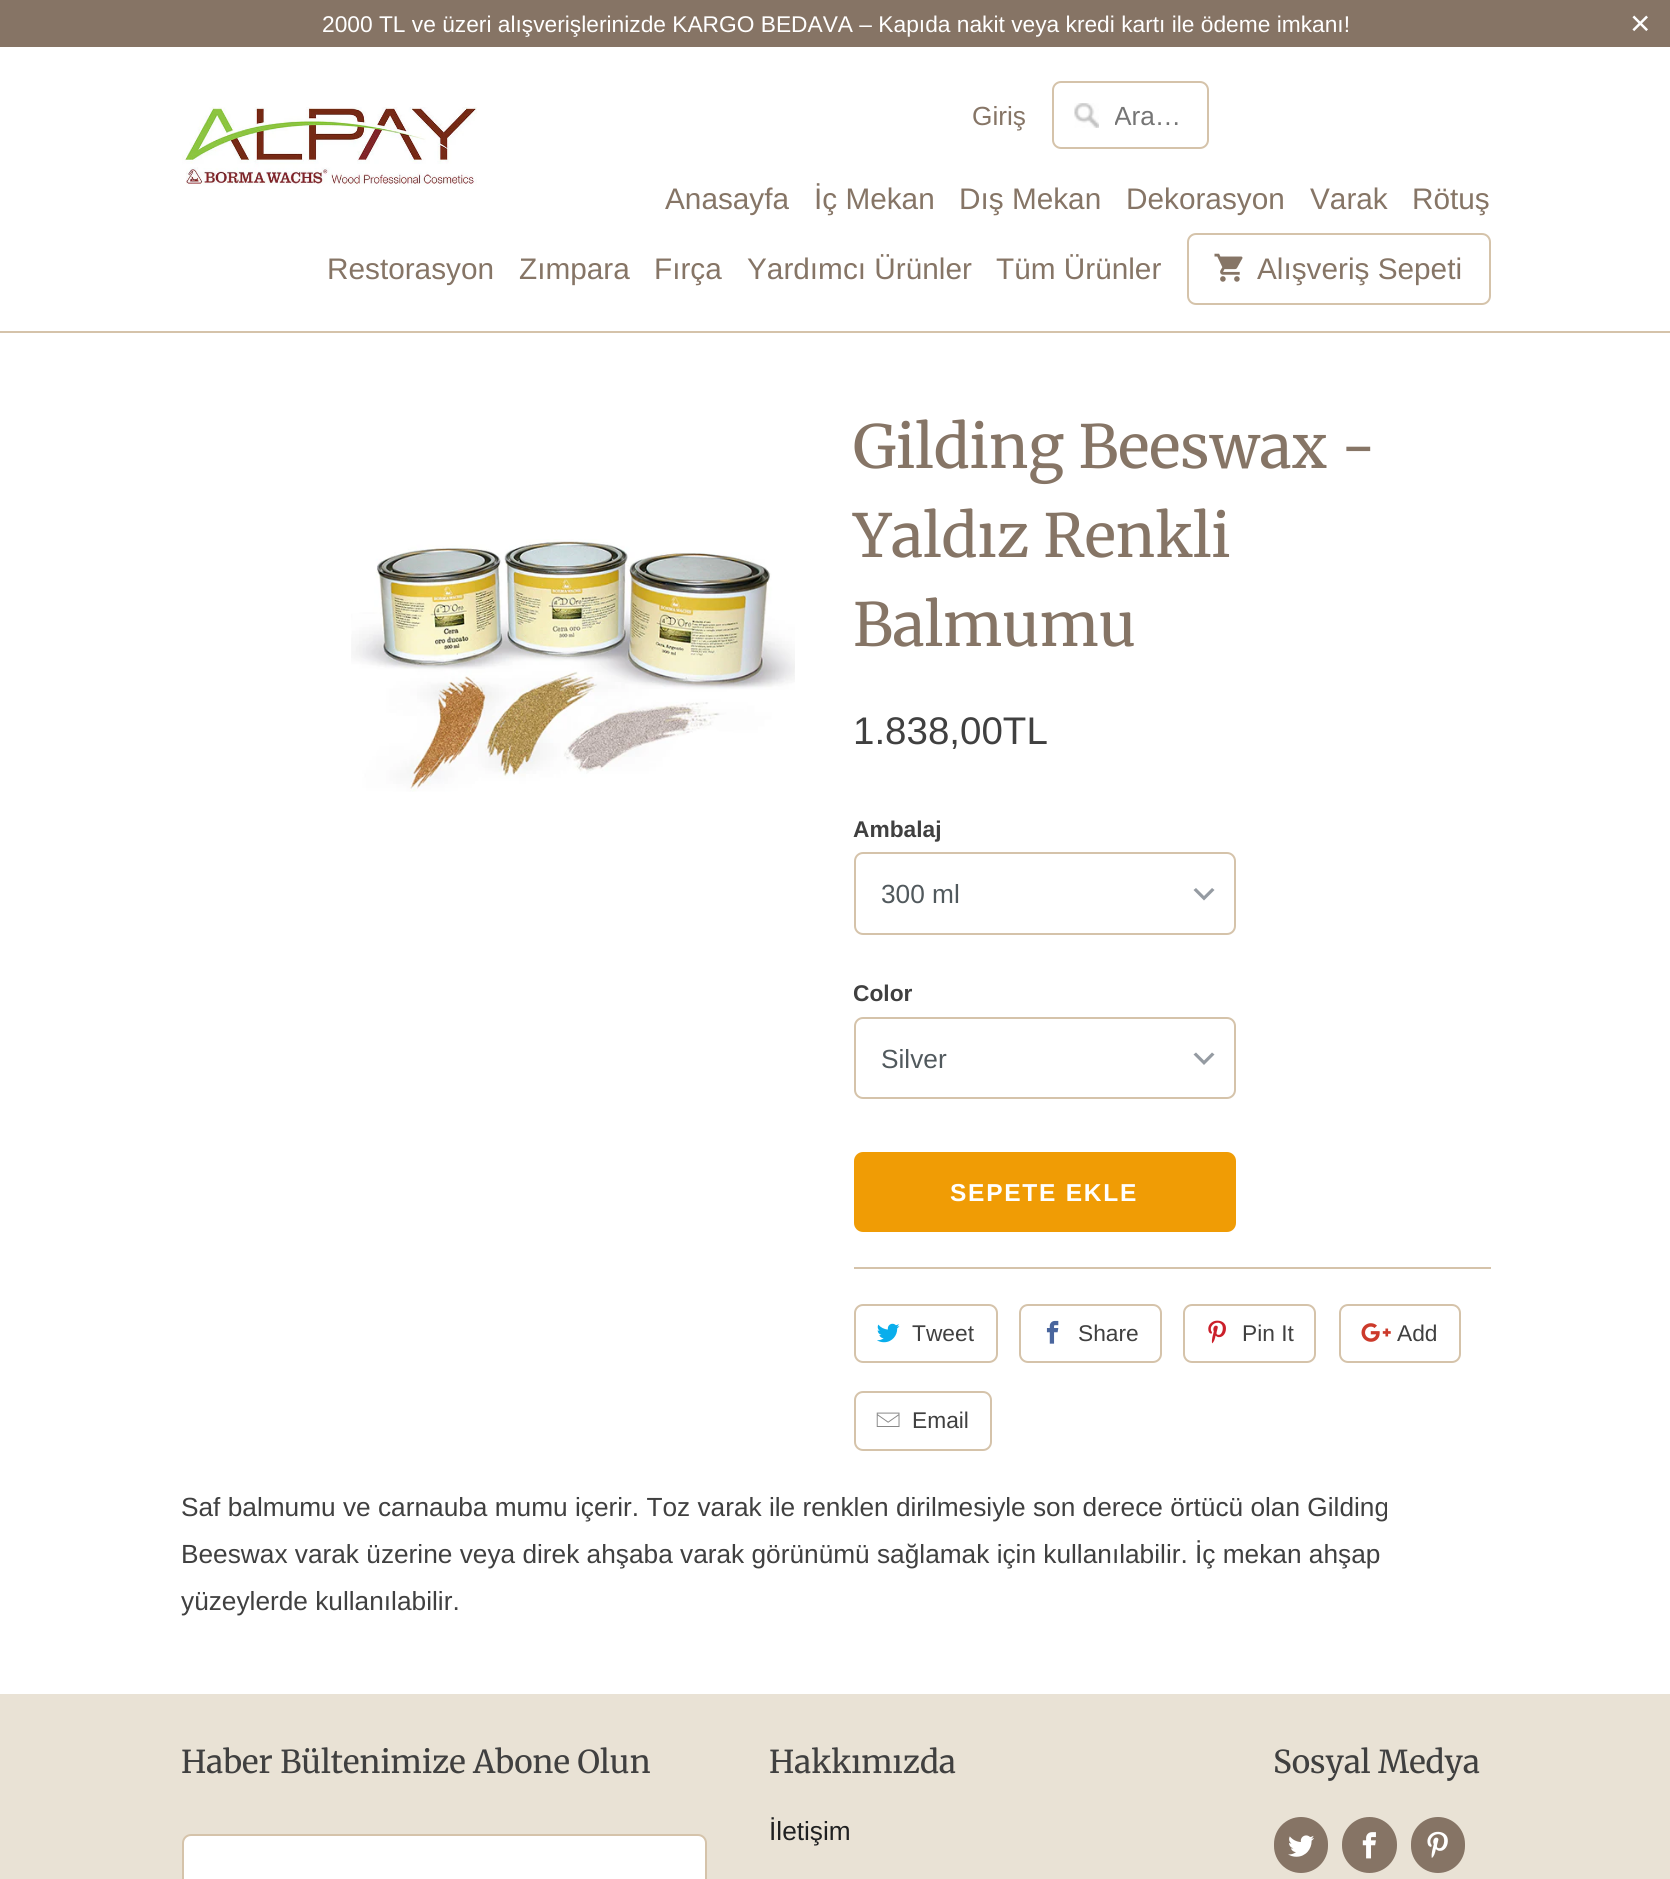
import math
import cairo

surface = cairo.ImageSurface(cairo.Format.RGB24, 1670, 1879)
ctx = cairo.Context(surface)
options = cairo.FontOptions()
options.set_hint_metrics(cairo.HintMetrics.OFF)
options.set_hint_style(cairo.HintStyle.NONE)
ctx.set_font_options(options)
ctx.set_miter_limit(4)


def ink(r, g, b):
    ctx.set_source_rgb(r / 255, g / 255, b / 255)


def write(x, y, s, family, size, color, bold=False, italic=False):
    ctx.select_font_face(family, cairo.FontSlant.ITALIC if italic else cairo.FontSlant.NORMAL, cairo.FontWeight.BOLD if bold else cairo.FontWeight.NORMAL)
    ctx.set_font_size(size)
    ink(*color)
    ctx.move_to(x, y)
    ctx.show_text(s)


def write_spaced(x, y, s, letter, word):
    ctx.move_to(x, y)
    for ch in s:
        ctx.show_text(ch)
        ctx.rel_move_to(letter + word * (ch == ' '), 0)


def block(x, y, w, h, *color):
    ink(*color)
    ctx.rectangle(x, y, w, h)
    ctx.fill()


def round_path(x, y, w, h, r):
    ctx.new_sub_path()
    for i, (u, v) in enumerate([(x + w - r, y + h - r), (x + r, y + h - r), (x + r, y + r), (x + w - r, y + r)]):
        ctx.arc(u, v, r, i * math.pi / 2, (i + 1) * math.pi / 2)
    ctx.close_path()


def paste(path, x, y, w, h):
    ctx.save()
    ctx.set_source_surface(cairo.ImageSurface.create_from_png(path), x, y)
    ctx.rectangle(x, y, w, h)
    ctx.fill()
    ctx.restore()


s1 = dict(family="Liberation Sans", size=22.75, color=(255, 255, 255))
s2 = dict(family="Liberation Sans", size=35, color=(255, 255, 255))
s3 = dict(family="Liberation Sans", size=26.25, color=(134, 117, 102))
s4 = dict(family="Liberation Sans", size=26.25, color=(117, 117, 117))
s5 = dict(family="Liberation Sans", size=29.75, color=(134, 117, 102))
s6 = dict(family="Merriweather", size=59.5, color=(134, 117, 102))
s7 = dict(family="Liberation Sans", size=38.5, color=(64, 64, 64))
s8 = dict(family="Liberation Sans", size=22.75, color=(64, 64, 64), bold=True)
s9 = dict(family="Liberation Sans", size=26.25, color=(81, 89, 93))
s10 = dict(family="Liberation Sans", size=22.75, color=(64, 64, 64))
s11 = dict(family="Liberation Sans", size=26.25, color=(64, 64, 64))
s12 = dict(family="Merriweather", size=31.5, color=(64, 64, 64))
s13 = dict(family="Liberation Sans", size=26.25, color=(31, 32, 33))

ink(255, 255, 255)
ctx.paint()
block(0, 0, 1670, 47, 134, 116, 101)
write(322, 32, "2000 TL ve üzeri alışverişlerinizde KARGO BEDAVA – Kapıda nakit veya kredi kartı ile ödeme imkanı!", **s1)
write(1630, 35, "×", **s2)
block(0, 331, 1670, 2, 213, 195, 170)
write(972, 125, "Giriş", **s3)
paste("pic1.png", 1074, 103, 25, 25)
round_path(1053, 82, 155, 66, 8)
ink(213, 195, 170)
ctx.stroke()
ctx.save()
ctx.rectangle(1115, 100, 66, 30)
ctx.clip()
write(1114, 125, "Ara…", **s4)
ctx.restore()
write(665, 209, "Anasayfa", **s5)
write(814, 209, "İç Mekan", **s5)
write(959, 209, "Dış Mekan", **s5)
write(1126, 209, "Dekorasyon", **s5)
write(1310, 209, "Varak", **s5)
write(1412, 209, "Rötuş", **s5)
write(327, 279, "Restorasyon", **s5)
write(519, 279, "Zımpara", **s5)
write(654, 279, "Fırça", **s5)
write(747, 279, "Yardımcı Ürünler", **s5)
write(996, 279, "Tüm Ürünler", **s5)
round_path(1188, 234, 302, 70, 8)
ink(213, 195, 170)
ctx.stroke()
paste("pic2.png", 1214, 253, 29, 29)
write(1257, 279, "Alışveriş Sepeti", **s5)
paste("pic3.png", 182, 107, 295, 79)
paste("pic4.png", 351, 539, 444, 253)
write(853, 468, "Gilding Beeswax -", **s6)
write(853, 557, "Yaldız Renkli", **s6)
write(853, 646, "Balmumu", **s6)
write(853, 744, "1.838,00TL", **s7)
write(853, 837, "Ambalaj", **s8)
ink(149, 155, 162)
ctx.new_path()
ctx.move_to(1212, 888)
ctx.line_to(1204, 896)
ctx.line_to(1196, 888)
ctx.line_to(1193.5, 890)
ctx.line_to(1204, 900.5)
ctx.line_to(1214.5, 890)
ctx.close_path()
ctx.fill()
round_path(855, 853, 380, 81, 8)
ink(213, 195, 170)
ctx.stroke()
write(881, 903, "300 ml", **s9)
write(853, 1001, "Color", **s8)
ink(149, 155, 162)
ctx.new_path()
ctx.move_to(1212, 1052.5)
ctx.line_to(1204, 1060.5)
ctx.line_to(1196, 1052.5)
ctx.line_to(1193.5, 1054.5)
ctx.line_to(1204, 1065)
ctx.line_to(1214.5, 1054.5)
ctx.close_path()
ctx.fill()
round_path(855, 1018, 380, 80, 8)
ink(213, 195, 170)
ctx.stroke()
write(881, 1068, "Silver", **s9)
ink(240, 156, 5)
round_path(854, 1152, 382, 80, 9)
ctx.fill()
ctx.select_font_face("Liberation Sans", cairo.FontSlant.NORMAL, cairo.FontWeight.BOLD)
ctx.set_font_size(24.5)
ink(255, 255, 255)
write_spaced(950, 1201, "SEPETE EKLE", 1.75, 0)
block(854, 1267, 637, 2, 213, 195, 170)
round_path(855, 1305, 142, 57, 8)
ctx.stroke()
paste("pic5.png", 877, 1323, 23, 20)
write(912, 1341, "Tweet", **s10)
round_path(1020, 1305, 141, 57, 8)
ink(213, 195, 170)
ctx.stroke()
paste("pic6.png", 1046, 1320, 13, 24)
write(1078, 1341, "Share", **s10)
round_path(1184, 1305, 131, 57, 8)
ink(213, 195, 170)
ctx.stroke()
paste("pic7.png", 1208, 1320, 18, 24)
write(1242, 1341, "Pin It", **s10)
round_path(1340, 1305, 120, 57, 8)
ink(213, 195, 170)
ctx.stroke()
paste("pic8.png", 1361, 1323, 30, 19)
write(1397, 1341, "Add", **s10)
round_path(855, 1392, 136, 58, 8)
ink(213, 195, 170)
ctx.stroke()
paste("pic9.png", 876, 1412, 24, 15)
write(912, 1428, "Email", **s10)
write(181, 1516, "Saf balmumu ve carnauba mumu içerir. Toz varak ile renklen dirilmesiyle son derece örtücü olan Gilding", **s11)
write(181, 1563, "Beeswax varak üzerine veya direk ahşaba varak görünümü sağlamak için kullanılabilir. İç mekan ahşap", **s11)
write(181, 1610, "yüzeylerde kullanılabilir.", **s11)
block(0, 1694, 1670, 185, 233, 226, 213)
write(181, 1773, "Haber Bültenimize Abone Olun", **s12)
ink(255, 255, 255)
round_path(183, 1835, 523, 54, 8)
ctx.fill_preserve()
ink(213, 195, 170)
ctx.stroke()
write(769, 1773, "Hakkımızda", **s12)
write(769, 1840, "İletişim", **s13)
write(1273, 1773, "Sosyal Medya", **s12)
ink(134, 116, 101)
round_path(1274, 1817, 54, 56, 27)
ctx.fill()
paste("pic10.png", 1288, 1835, 26, 22)
round_path(1342, 1817, 55, 56, 27.5)
ctx.fill()
paste("pic11.png", 1362, 1832, 14, 27)
round_path(1411, 1817, 54, 56, 27)
ctx.fill()
paste("pic12.png", 1427, 1831, 21, 27)
surface.write_to_png("screenshot.png")
